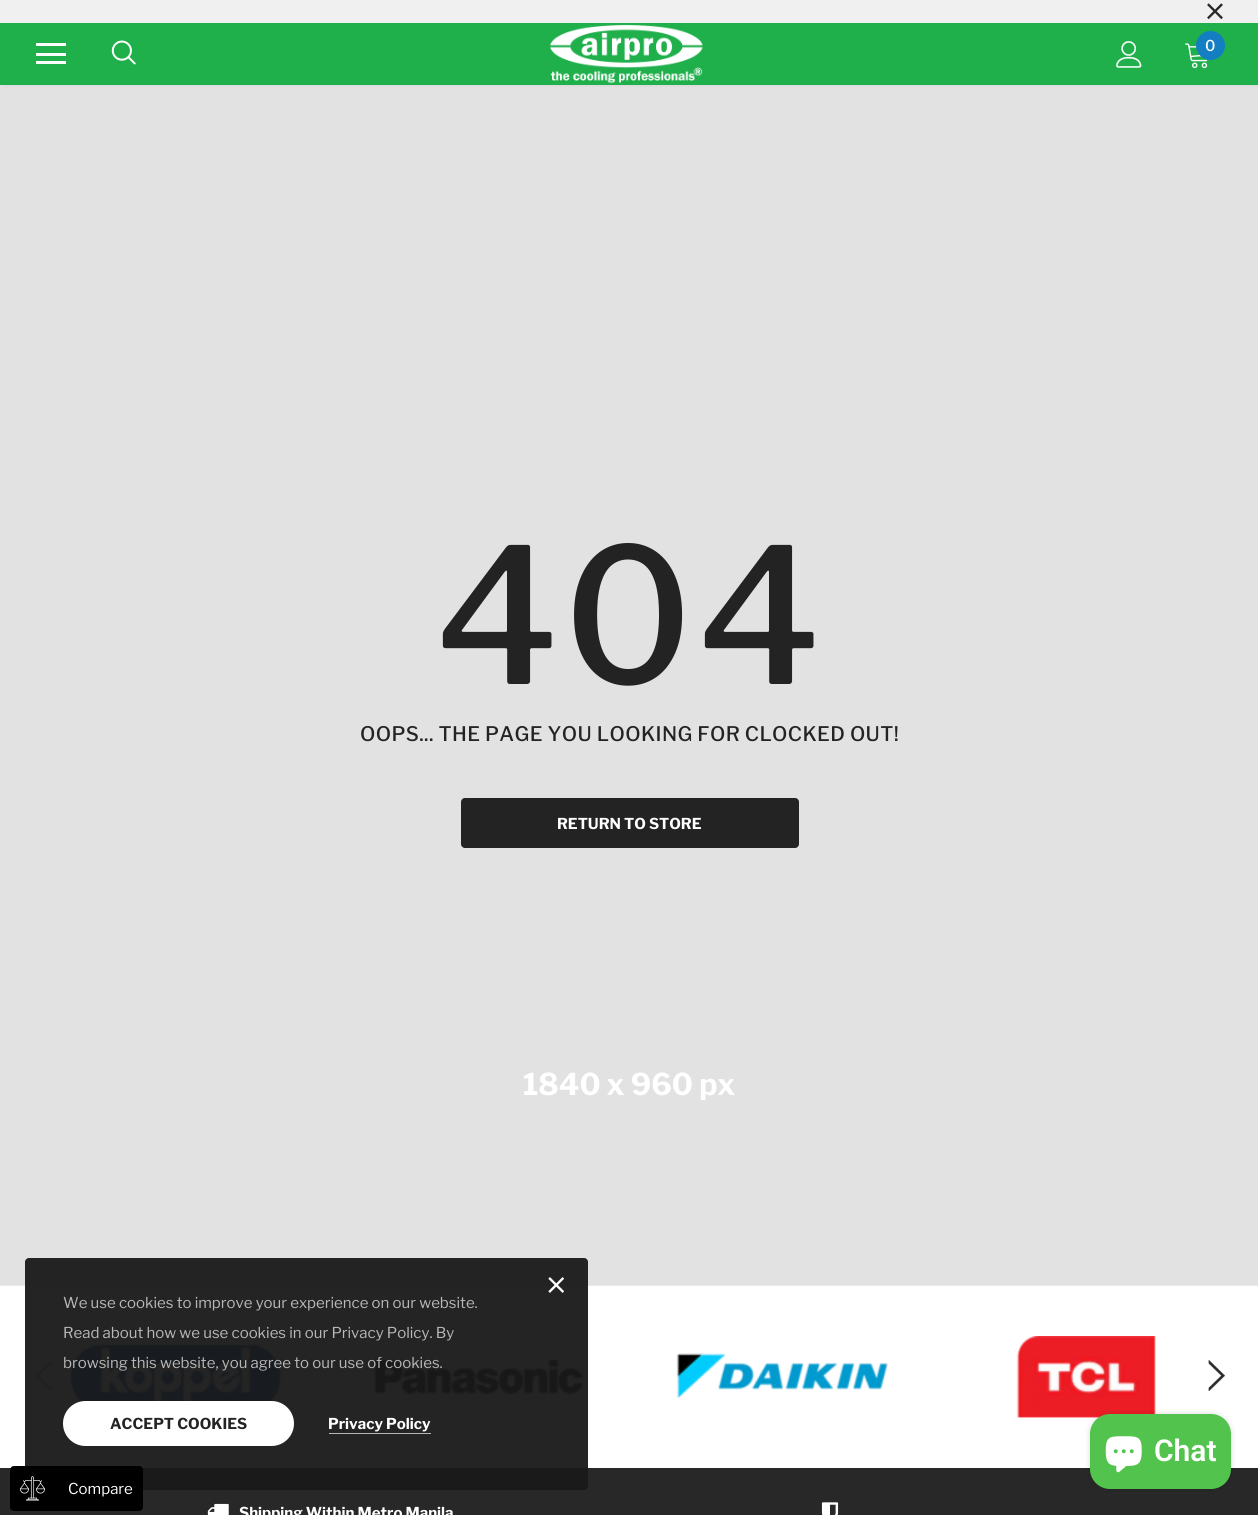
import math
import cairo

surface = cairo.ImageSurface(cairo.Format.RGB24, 1258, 1515)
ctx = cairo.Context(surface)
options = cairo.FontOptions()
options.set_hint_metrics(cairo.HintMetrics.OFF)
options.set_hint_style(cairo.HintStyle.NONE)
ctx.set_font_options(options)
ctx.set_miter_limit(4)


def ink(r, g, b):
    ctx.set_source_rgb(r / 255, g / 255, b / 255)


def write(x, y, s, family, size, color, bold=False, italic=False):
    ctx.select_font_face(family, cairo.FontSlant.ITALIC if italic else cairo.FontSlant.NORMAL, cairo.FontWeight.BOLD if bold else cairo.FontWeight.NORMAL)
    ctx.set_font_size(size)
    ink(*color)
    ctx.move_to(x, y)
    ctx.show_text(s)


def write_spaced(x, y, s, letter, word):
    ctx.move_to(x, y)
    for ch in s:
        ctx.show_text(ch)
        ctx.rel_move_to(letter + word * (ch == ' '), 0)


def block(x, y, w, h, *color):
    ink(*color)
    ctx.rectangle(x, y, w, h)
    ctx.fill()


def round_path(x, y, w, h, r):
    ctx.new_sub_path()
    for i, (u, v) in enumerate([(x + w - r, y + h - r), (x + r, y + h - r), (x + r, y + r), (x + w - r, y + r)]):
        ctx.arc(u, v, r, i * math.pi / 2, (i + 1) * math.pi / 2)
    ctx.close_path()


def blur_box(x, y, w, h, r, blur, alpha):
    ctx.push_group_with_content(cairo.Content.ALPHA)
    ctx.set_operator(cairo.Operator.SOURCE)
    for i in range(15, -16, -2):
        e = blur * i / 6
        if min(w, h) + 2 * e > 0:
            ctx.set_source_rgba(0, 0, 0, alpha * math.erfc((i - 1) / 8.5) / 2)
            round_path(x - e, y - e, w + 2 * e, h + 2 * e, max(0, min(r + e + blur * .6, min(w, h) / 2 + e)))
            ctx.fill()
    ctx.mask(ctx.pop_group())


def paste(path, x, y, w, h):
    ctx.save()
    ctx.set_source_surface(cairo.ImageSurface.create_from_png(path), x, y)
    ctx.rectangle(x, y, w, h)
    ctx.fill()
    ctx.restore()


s1 = dict(family="Libre Franklin Medium", size=15, color=(255, 255, 255))
s2 = dict(family="Libre Franklin", size=15, color=(255, 255, 255), bold=True)
s3 = dict(family="Libre Franklin", size=30, color=(255, 255, 255), bold=True)
s4 = dict(family="Libre Franklin", size=15, color=(184, 184, 184))
s5 = dict(family="Libre Franklin", size=15, color=(35, 35, 35), bold=True)
s6 = dict(family="Roboto SemiBold", size=30, color=(255, 255, 255))
s7 = dict(family="Libre Franklin", size=15, color=(255, 255, 255))

ink(255, 255, 255)
ctx.paint()
block(0, 85, 1258, 1200, 226, 226, 226)
block(0, 0, 1258, 23, 240, 240, 240)
paste("pic1.png", 1207, 3, 16, 16)
ink(94, 94, 94)
blur_box(4, 30, 1251, 55, 0, 2, 0.12)
block(0, 23, 1258, 62, 31, 175, 75)
block(36, 43, 30, 3, 255, 255, 255)
block(36, 53, 30, 3, 255, 255, 255)
block(36, 61, 30, 3, 255, 255, 255)
paste("pic2.png", 111, 40, 25, 25)
paste("pic3.png", 550, 25, 153, 58)
paste("pic4.png", 1116, 41, 26, 27)
paste("pic5.png", 1185, 43, 23, 26)
ink(20, 126, 194)
ctx.arc(1210.5, 45.5, 14.5, 0, 2 * math.pi)
ctx.fill()
write(1205, 51, "0", **s1)
ctx.set_font_size(187.5)
ink(35, 35, 35)
write_spaced(435, 684, "404", 4, 0)
ctx.set_font_size(20)
write_spaced(360, 741, "OOPS... THE PAGE YOU LOOKING FOR CLOCKED OUT!", 0.4, 0)
round_path(461.5, 798.5, 337, 49, 3.5)
ctx.fill_preserve()
ctx.set_line_width(1)
ctx.stroke()
write(557, 829, "RETURN TO STORE", **s2)
write(523, 1095, "1840 x 960 px", **s3)
block(0, 1285, 1258, 1, 232, 234, 235)
paste("pic6.png", 35, 1360, 17, 31)
paste("pic7.png", 69, 1344, 212, 58)
paste("pic8.png", 374, 1359, 209, 36)
paste("pic9.png", 676, 1353, 212, 46)
paste("pic10.png", 1016, 1336, 140, 82)
paste("pic11.png", 1208, 1360, 17, 31)
block(0, 1468, 1258, 47, 40, 40, 40)
ctx.set_source_rgba(0.102, 0.102, 0.102, 0.95)
round_path(25, 1258, 563, 232, 4)
ctx.fill()
paste("pic12.png", 548, 1277, 16, 16)
write(63, 1308, "We use cookies to improve your experience on our website.", **s4)
write(63, 1338, "Read about how we use cookies in our Privacy Policy. By", **s4)
write(63, 1368, "browsing this website, you agree to our use of cookies.", **s4)
ink(255, 255, 255)
round_path(63, 1401, 231, 45, 22.5)
ctx.fill()
write(110, 1429, "ACCEPT COOKIES", **s5)
write(328, 1429, "Privacy Policy", **s2)
block(329, 1433, 102, 1, 184, 184, 184)
paste("pic13.png", 207, 1503, 22, 12)
write(239, 1518, "Shipping Within Metro Manila", **s2)
paste("pic14.png", 821, 1502, 18, 13)
ink(0, 0, 0)
blur_box(1090, 1414, 141, 75, 20, 3, 0.15)
ink(82, 196, 77)
round_path(1090, 1414, 141, 75, 20)
ctx.fill()
paste("pic15.png", 1105, 1436, 37, 37)
write(1154, 1461, "Chat", **s6)
ink(0, 0, 0)
round_path(10, 1466, 133, 45, 4)
ctx.fill()
paste("pic16.png", 20, 1476, 25, 25)
write(68, 1494, "Compare", **s7)
surface.write_to_png("screenshot.png")
